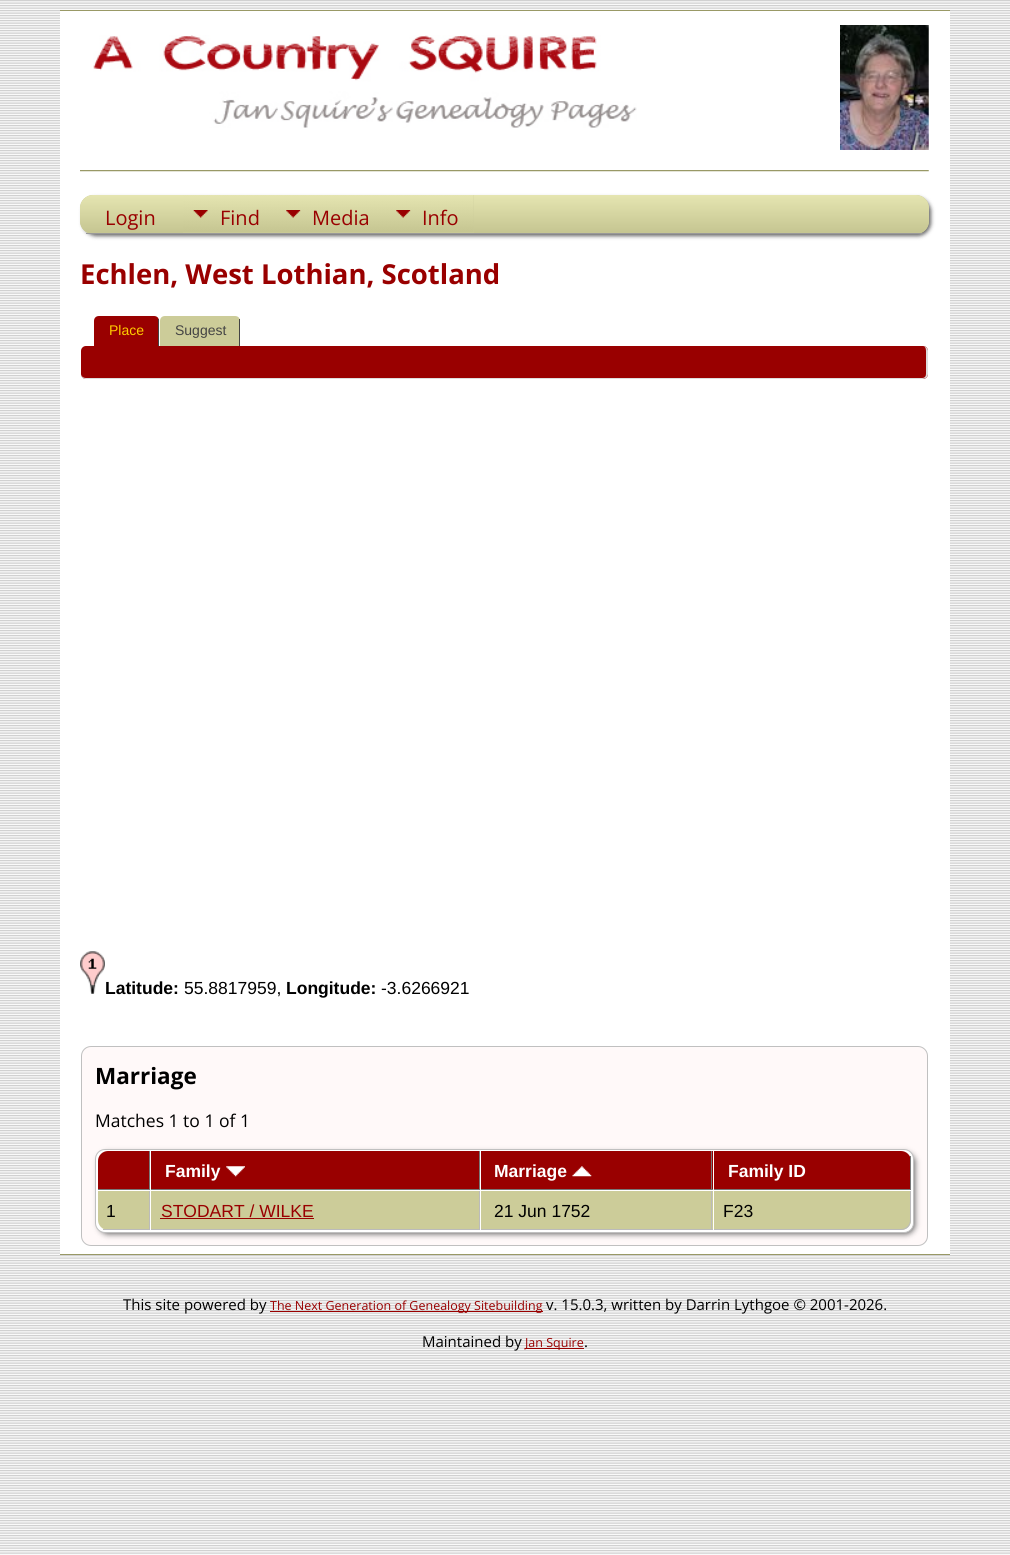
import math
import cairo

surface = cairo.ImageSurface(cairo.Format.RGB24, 1010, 1555)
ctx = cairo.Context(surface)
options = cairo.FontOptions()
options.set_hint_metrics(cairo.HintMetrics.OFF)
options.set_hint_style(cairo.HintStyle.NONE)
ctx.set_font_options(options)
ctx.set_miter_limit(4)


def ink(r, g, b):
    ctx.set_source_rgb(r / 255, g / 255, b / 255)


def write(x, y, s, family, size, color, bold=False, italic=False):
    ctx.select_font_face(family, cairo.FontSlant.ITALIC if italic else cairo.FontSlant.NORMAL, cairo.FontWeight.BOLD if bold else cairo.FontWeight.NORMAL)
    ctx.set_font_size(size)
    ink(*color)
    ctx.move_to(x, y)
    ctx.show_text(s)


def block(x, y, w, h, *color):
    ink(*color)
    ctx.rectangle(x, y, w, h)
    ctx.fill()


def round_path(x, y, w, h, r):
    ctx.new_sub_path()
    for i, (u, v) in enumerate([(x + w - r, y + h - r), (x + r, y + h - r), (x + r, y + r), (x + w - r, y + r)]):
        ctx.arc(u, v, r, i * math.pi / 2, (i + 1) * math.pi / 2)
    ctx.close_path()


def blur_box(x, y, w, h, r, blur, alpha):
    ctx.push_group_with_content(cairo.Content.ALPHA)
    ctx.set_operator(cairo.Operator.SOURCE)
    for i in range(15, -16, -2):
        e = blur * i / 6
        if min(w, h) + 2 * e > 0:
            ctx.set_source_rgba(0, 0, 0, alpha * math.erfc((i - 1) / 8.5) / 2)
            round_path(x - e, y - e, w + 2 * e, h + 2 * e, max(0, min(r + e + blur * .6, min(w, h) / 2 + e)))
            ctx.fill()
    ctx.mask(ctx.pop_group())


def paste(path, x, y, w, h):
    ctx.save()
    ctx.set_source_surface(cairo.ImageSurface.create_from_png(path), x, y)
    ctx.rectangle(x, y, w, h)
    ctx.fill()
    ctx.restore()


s1 = dict(family="Open Sans", size=20, color=(153, 0, 0))
s2 = dict(family="Open Sans", size=27.5, color=(153, 0, 0), bold=True)
s3 = dict(family="Liberation Sans", size=14, color=(255, 204, 0))
s4 = dict(family="Liberation Sans", size=14, color=(68, 68, 68))
s5 = dict(family="Liberation Sans", size=17.5, color=(0, 0, 0), bold=True)
s6 = dict(family="Liberation Sans", size=17.5, color=(0, 0, 0))
s7 = dict(family="Open Sans", size=22.5, color=(0, 0, 0), bold=True)
s8 = dict(family="Open Sans", size=17.5, color=(0, 0, 0))
s9 = dict(family="Liberation Sans", size=17.5, color=(255, 255, 255), bold=True)
s10 = dict(family="Liberation Sans", size=17.5, color=(153, 0, 0))
s11 = dict(family="Open Sans", size=15, color=(0, 0, 0))
s12 = dict(family="Open Sans", size=12.5, color=(153, 0, 0))

ink(255, 255, 255)
ctx.paint()
paste("pic1.png", 0, 0, 1010, 1555)
block(60, 10, 890, 1, 153, 153, 102)
block(60, 11, 890, 1243, 255, 255, 255)
block(60, 1254, 890, 1, 153, 153, 102)
paste("pic2.png", 93, 35, 544, 93)
paste("pic3.png", 840, 25, 89, 125)
paste("pic4.png", 80, 170, 849, 2)
ink(102, 102, 102)
blur_box(83, 198, 848, 38, 13, 2, 1)
ink(204, 204, 153)
round_path(80, 195, 849, 39, 13)
ctx.fill()
ctx.save()
round_path(80, 195, 849, 39, 13)
ctx.clip()
gradient = cairo.LinearGradient(504, 195, 504, 233)
gradient.add_color_stop_rgba(0, 0.898, 0.898, 0.694, 1)
gradient.add_color_stop_rgba(1, 0.773, 0.773, 0.569, 1)
ctx.set_source(gradient)
ctx.new_path()
ctx.move_to(93, 195)
ctx.line_to(916, 195)
ctx.curve_to(923, 195, 929, 201, 929, 208)
ctx.line_to(929, 233)
ctx.line_to(80, 233)
ctx.line_to(80, 208)
ctx.curve_to(80, 201, 86, 195, 93, 195)
ctx.close_path()
ctx.fill()
ctx.restore()
block(86, 233, 837, 1, 153, 153, 153)
write(105, 225, "Login", **s1)
block(183, 232, 202, 1, 204, 204, 153)
paste("pic5.png", 183, 195, 92, 38)
write(220, 225, "Find", **s1)
paste("pic6.png", 275, 195, 110, 38)
write(312, 225, "Media", **s1)
block(385, 195, 89, 38, 204, 204, 153)
paste("pic7.png", 385, 195, 89, 38)
write(422, 225, "Info", **s1)
write(80, 284, "Echlen, West Lothian, Scotland", **s2)
ctx.new_path()
ctx.move_to(99, 316)
ctx.line_to(154, 316)
ctx.curve_to(157, 316, 159, 318, 159, 321)
ctx.line_to(159, 346)
ctx.line_to(94, 346)
ctx.line_to(94, 321)
ctx.curve_to(94, 318, 96, 316, 99, 316)
ctx.close_path()
ctx.fill()
block(158, 319, 1, 27, 68, 68, 68)
write(109, 335, "Place", **s3)
ink(204, 204, 153)
ctx.new_path()
ctx.move_to(165, 316)
ctx.line_to(235, 316)
ctx.curve_to(238, 316, 240, 318, 240, 321)
ctx.line_to(240, 346)
ctx.line_to(160, 346)
ctx.line_to(160, 321)
ctx.curve_to(160, 318, 162, 316, 165, 316)
ctx.close_path()
ctx.fill()
block(239, 319, 1, 27, 68, 68, 68)
write(175, 335, "Suggest", **s4)
ink(153, 0, 0)
round_path(81, 346, 847, 33, 5)
ctx.fill()
ink(221, 221, 221)
ctx.set_fill_rule(cairo.FillRule.EVEN_ODD)
ctx.new_path()
ctx.move_to(86, 346)
ctx.line_to(922, 346)
ctx.curve_to(925, 346, 928, 348, 928, 351)
ctx.line_to(928, 374)
ctx.curve_to(928, 377, 925, 379, 922, 379)
ctx.line_to(86, 379)
ctx.curve_to(83, 379, 81, 377, 81, 374)
ctx.line_to(81, 351)
ctx.curve_to(81, 348, 83, 346, 86, 346)
ctx.close_path()
ctx.move_to(86, 346)
ctx.line_to(922, 346)
ctx.curve_to(925, 346, 926, 348, 926, 351)
ctx.line_to(926, 374)
ctx.curve_to(926, 376, 925, 378, 922, 378)
ctx.line_to(86, 378)
ctx.curve_to(83, 378, 81, 376, 81, 374)
ctx.line_to(81, 351)
ctx.curve_to(81, 348, 83, 346, 86, 346)
ctx.close_path()
ctx.fill()
paste("pic8.png", 80, 951, 25, 43)
write(105, 994, "Latitude:", **s5)
write(184, 994, "55.8817959,", **s6)
write(286, 994, "Longitude:", **s5)
write(381, 994, "-3.6266921", **s6)
ink(255, 249, 249)
round_path(81.5, 1046.5, 846, 199, 9.5)
ctx.fill_preserve()
ink(192, 192, 192)
ctx.set_line_width(1)
ctx.stroke()
write(95, 1084, "Marriage", **s7)
write(95, 1127, "Matches 1 to 1 of 1", **s8)
ink(102, 102, 102)
blur_box(99, 1153, 816, 81, 9, 3, 1)
ink(255, 255, 255)
round_path(95.5, 1149.5, 818, 83, 9.5)
ctx.fill_preserve()
ink(192, 192, 192)
ctx.stroke()
ink(153, 0, 0)
ctx.new_path()
ctx.move_to(108, 1151)
ctx.line_to(150, 1151)
ctx.line_to(150, 1190)
ctx.line_to(98, 1190)
ctx.line_to(98, 1161)
ctx.curve_to(98, 1155.5, 102.5, 1151, 108, 1151)
ctx.close_path()
ctx.fill()
block(149, 1151, 1, 39, 119, 119, 119)
block(98, 1189, 52, 1, 119, 119, 119)
block(151, 1151, 328, 38, 153, 0, 0)
block(479, 1151, 1, 39, 119, 119, 119)
block(151, 1189, 329, 1, 119, 119, 119)
write(165, 1177, "Family", **s9)
paste("pic9.png", 226, 1166, 19, 11)
block(481, 1151, 232, 38, 153, 0, 0)
block(711, 1151, 1, 39, 119, 119, 119)
block(481, 1189, 232, 1, 119, 119, 119)
write(494, 1177, "Marriage", **s9)
paste("pic10.png", 572, 1166, 20, 11)
ink(153, 0, 0)
ctx.new_path()
ctx.move_to(714, 1151)
ctx.line_to(901, 1151)
ctx.curve_to(906.5, 1151, 911, 1155.5, 911, 1161)
ctx.line_to(911, 1190)
ctx.line_to(714, 1190)
ctx.close_path()
ctx.fill()
block(910, 1156, 1, 34, 119, 119, 119)
block(714, 1189, 197, 1, 119, 119, 119)
write(728, 1177, "Family ID", **s9)
ink(204, 204, 153)
ctx.new_path()
ctx.move_to(98, 1191)
ctx.line_to(150, 1191)
ctx.line_to(150, 1230)
ctx.line_to(108, 1230)
ctx.curve_to(102.5, 1230, 98, 1225.5, 98, 1220)
ctx.close_path()
ctx.fill()
block(149, 1191, 1, 39, 187, 187, 187)
block(103, 1229, 47, 1, 187, 187, 187)
write(106, 1217, "1", **s6)
block(151, 1191, 328, 38, 204, 204, 153)
block(479, 1191, 1, 39, 187, 187, 187)
block(151, 1229, 329, 1, 187, 187, 187)
write(161, 1217, "STODART / WILKE", **s10)
block(160, 1218, 154, 1, 153, 0, 0)
block(481, 1191, 232, 38, 204, 204, 153)
block(711, 1191, 1, 39, 187, 187, 187)
block(481, 1229, 232, 1, 187, 187, 187)
write(494, 1217, "21 Jun 1752", **s6)
ink(204, 204, 153)
ctx.new_path()
ctx.move_to(714, 1191)
ctx.line_to(911, 1191)
ctx.line_to(911, 1220)
ctx.curve_to(911, 1225.5, 906.5, 1230, 901, 1230)
ctx.line_to(714, 1230)
ctx.close_path()
ctx.fill()
ink(187, 187, 187)
ctx.new_path()
ctx.move_to(714, 1191)
ctx.line_to(911, 1191)
ctx.line_to(911, 1220)
ctx.curve_to(911, 1226, 907, 1230, 901, 1230)
ctx.line_to(714, 1230)
ctx.close_path()
ctx.move_to(714, 1191)
ctx.line_to(910, 1191)
ctx.line_to(910, 1220)
ctx.curve_to(910, 1225, 906, 1229, 901, 1229)
ctx.line_to(714, 1229)
ctx.close_path()
ctx.fill()
write(723, 1217, "F23", **s6)
write(123, 1310, "This site powered by", **s11)
block(270, 1311, 273, 1, 153, 0, 0)
write(270, 1310, "The Next Generation of Genealogy Sitebuilding", **s12)
write(546, 1310, "v. 15.0.3, written by Darrin Lythgoe © 2001-2026.", **s11)
write(422, 1347, "Maintained by", **s11)
block(525, 1348, 59, 1, 153, 0, 0)
write(525, 1347, "Jan Squire", **s12)
write(584, 1347, ".", **s11)
surface.write_to_png("screenshot.png")
